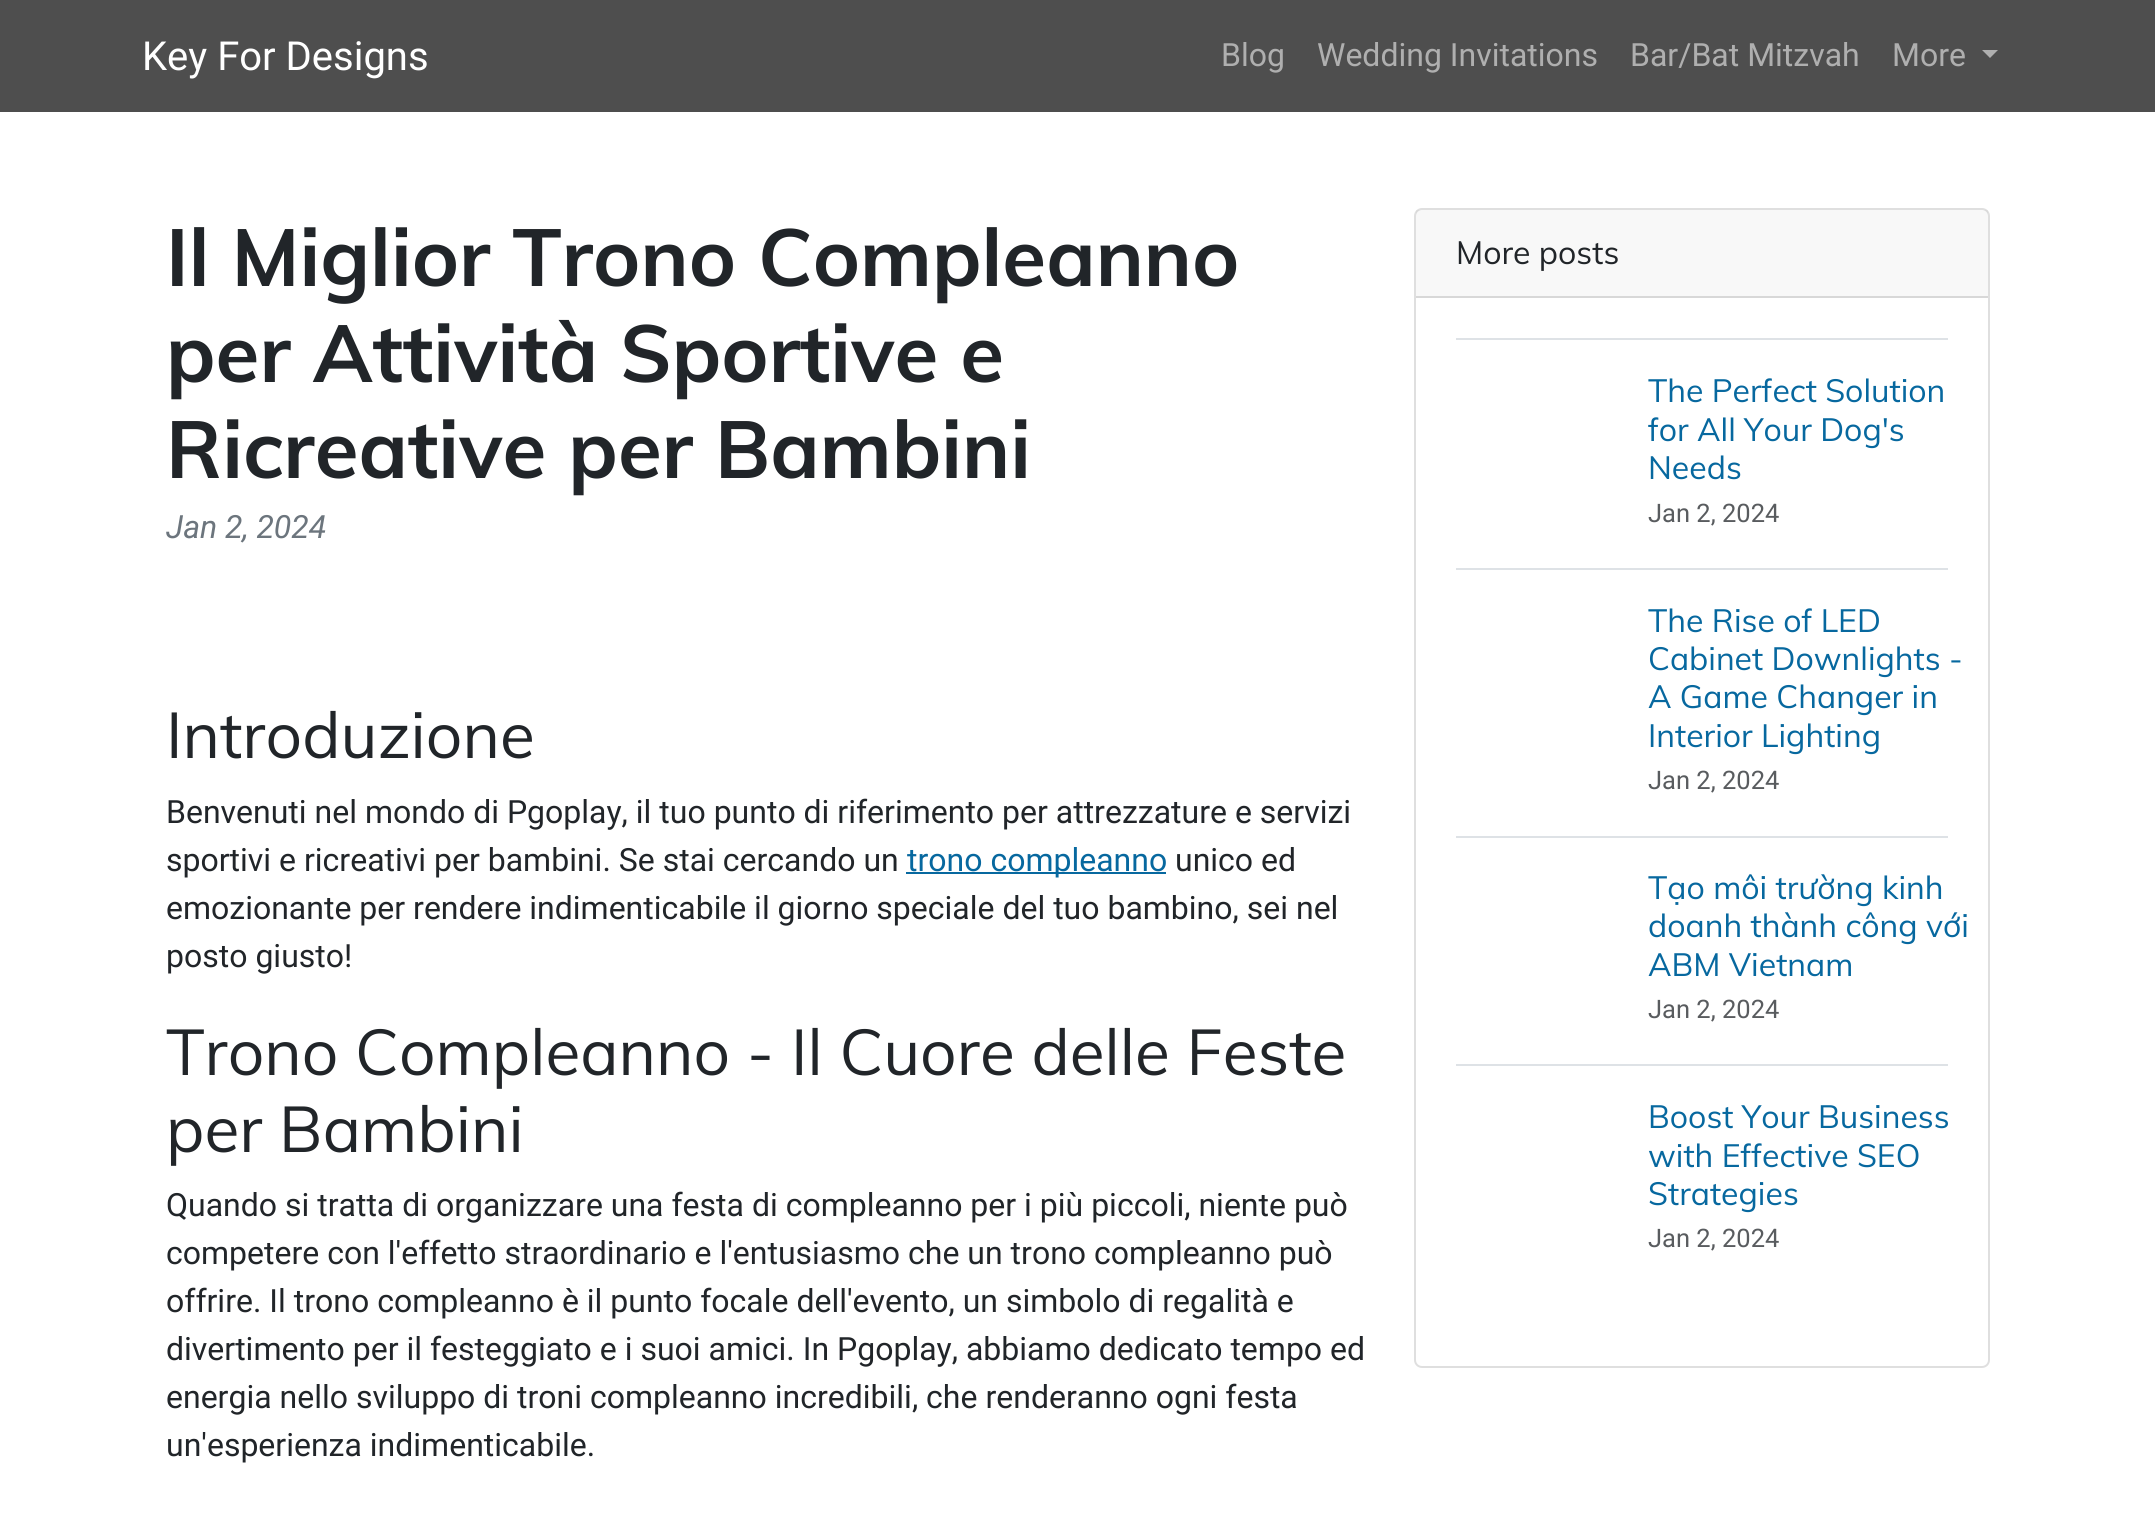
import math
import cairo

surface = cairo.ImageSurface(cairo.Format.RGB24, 2155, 1523)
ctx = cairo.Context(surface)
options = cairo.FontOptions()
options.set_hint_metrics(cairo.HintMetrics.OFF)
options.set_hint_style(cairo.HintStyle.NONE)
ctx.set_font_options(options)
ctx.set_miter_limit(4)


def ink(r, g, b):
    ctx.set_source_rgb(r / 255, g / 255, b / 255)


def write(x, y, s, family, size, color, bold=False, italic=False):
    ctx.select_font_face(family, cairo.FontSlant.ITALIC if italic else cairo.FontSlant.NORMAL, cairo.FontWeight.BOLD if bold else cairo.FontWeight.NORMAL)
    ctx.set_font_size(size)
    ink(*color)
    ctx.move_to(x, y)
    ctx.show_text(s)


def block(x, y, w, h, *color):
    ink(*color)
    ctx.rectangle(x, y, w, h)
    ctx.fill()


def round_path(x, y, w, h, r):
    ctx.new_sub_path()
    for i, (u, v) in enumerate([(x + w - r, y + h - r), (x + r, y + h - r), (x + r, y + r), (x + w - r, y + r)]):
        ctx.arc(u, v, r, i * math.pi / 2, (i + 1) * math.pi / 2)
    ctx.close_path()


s1 = dict(family="Roboto", size=40, color=(255, 255, 255))
s2 = dict(family="Roboto", size=32, color=(175, 175, 175))
s3 = dict(family="Muli", size=80, color=(33, 37, 41), bold=True)
s4 = dict(family="Roboto", size=32, color=(108, 117, 125), italic=True)
s5 = dict(family="Muli", size=64, color=(33, 37, 41))
s6 = dict(family="Roboto", size=32, color=(33, 37, 41))
s7 = dict(family="Roboto", size=32, color=(7, 104, 159))
s8 = dict(family="Muli", size=32, color=(33, 37, 41))
s9 = dict(family="Muli", size=32, color=(7, 104, 159))
s10 = dict(family="Roboto", size=25.5, color=(89, 92, 95))

ink(255, 255, 255)
ctx.paint()
block(0, 0, 2155, 112, 78, 78, 78)
write(142, 70, "Key For Designs", **s1)
write(1221, 66, "Blog", **s2)
write(1317, 66, "Wedding Invitations", **s2)
write(1630, 66, "Bar/Bat Mitzvah", **s2)
write(1892, 66, "More", **s2)
ctx.new_path()
ctx.move_to(1982, 50)
ctx.line_to(1998, 50)
ctx.line_to(1990, 58)
ctx.close_path()
ctx.fill()
write(166, 286, "Il Miglior Trono Compleanno", **s3)
write(166, 382, "per Attività Sportive e", **s3)
write(166, 478, "Ricreative per Bambini", **s3)
write(166, 538, "Jan 2, 2024", **s4)
write(166, 758, "Introduzione", **s5)
write(166, 823, "Benvenuti nel mondo di Pgoplay, il tuo punto di riferimento per attrezzature e servizi", **s6)
write(166, 871, "sportivi e ricreativi per bambini. Se stai cercando un", **s6)
block(906, 872, 260, 2, 7, 104, 159)
write(907, 871, "trono compleanno", **s7)
write(1175, 871, "unico ed", **s6)
write(166, 919, "emozionante per rendere indimenticabile il giorno speciale del tuo bambino, sei nel", **s6)
write(166, 967, "posto giusto!", **s6)
write(166, 1075, "Trono Compleanno - Il Cuore delle Feste", **s5)
write(166, 1152, "per Bambini", **s5)
write(166, 1216, "Quando si tratta di organizzare una festa di compleanno per i più piccoli, niente può", **s6)
write(166, 1264, "competere con l'effetto straordinario e l'entusiasmo che un trono compleanno può", **s6)
write(166, 1312, "offrire. Il trono compleanno è il punto focale dell'evento, un simbolo di regalità e", **s6)
write(166, 1360, "divertimento per il festeggiato e i suoi amici. In Pgoplay, abbiamo dedicato tempo ed", **s6)
write(166, 1408, "energia nello sviluppo di troni compleanno incredibili, che renderanno ogni festa", **s6)
write(166, 1456, "un'esperienza indimenticabile.", **s6)
round_path(1415, 209, 574, 1158, 7)
ink(223, 223, 223)
ctx.stroke()
ctx.set_source_rgba(0, 0, 0, 0.03)
ctx.rectangle(1416, 210, 572, 86)
ctx.fill()
block(1416, 296, 572, 2, 216, 216, 216)
write(1456, 264, "More posts", **s8)
block(1456, 338, 492, 2, 222, 226, 230)
write(1648, 402, "The Perfect Solution", **s9)
write(1648, 441, "for All Your Dog's", **s9)
write(1648, 479, "Needs", **s9)
write(1648, 522, "Jan 2, 2024", **s10)
block(1456, 568, 492, 2, 222, 226, 230)
write(1648, 632, "The Rise of LED", **s9)
write(1648, 670, "Cabinet Downlights -", **s9)
write(1648, 708, "A Game Changer in", **s9)
write(1648, 747, "Interior Lighting", **s9)
write(1648, 789, "Jan 2, 2024", **s10)
block(1456, 836, 492, 2, 222, 226, 230)
write(1648, 899, "Tạo môi trường kinh", **s9)
write(1648, 937, "doanh thành công với", **s9)
write(1648, 976, "ABM Vietnam", **s9)
write(1648, 1018, "Jan 2, 2024", **s10)
block(1456, 1064, 492, 2, 222, 226, 230)
write(1648, 1128, "Boost Your Business", **s9)
write(1648, 1167, "with Effective SEO", **s9)
write(1648, 1205, "Strategies", **s9)
write(1648, 1247, "Jan 2, 2024", **s10)
surface.write_to_png("screenshot.png")
